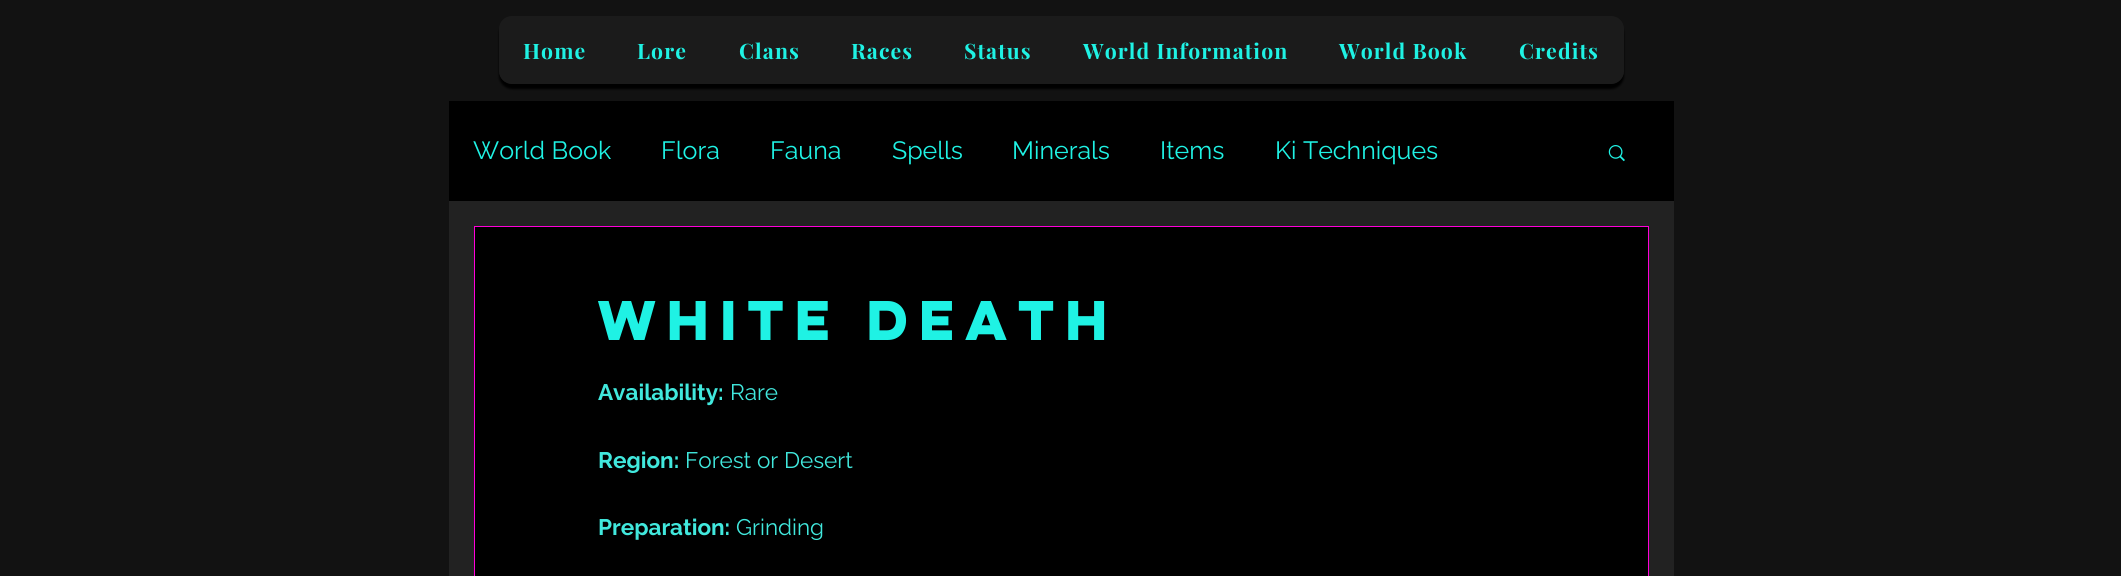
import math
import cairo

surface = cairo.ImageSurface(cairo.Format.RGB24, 2121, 576)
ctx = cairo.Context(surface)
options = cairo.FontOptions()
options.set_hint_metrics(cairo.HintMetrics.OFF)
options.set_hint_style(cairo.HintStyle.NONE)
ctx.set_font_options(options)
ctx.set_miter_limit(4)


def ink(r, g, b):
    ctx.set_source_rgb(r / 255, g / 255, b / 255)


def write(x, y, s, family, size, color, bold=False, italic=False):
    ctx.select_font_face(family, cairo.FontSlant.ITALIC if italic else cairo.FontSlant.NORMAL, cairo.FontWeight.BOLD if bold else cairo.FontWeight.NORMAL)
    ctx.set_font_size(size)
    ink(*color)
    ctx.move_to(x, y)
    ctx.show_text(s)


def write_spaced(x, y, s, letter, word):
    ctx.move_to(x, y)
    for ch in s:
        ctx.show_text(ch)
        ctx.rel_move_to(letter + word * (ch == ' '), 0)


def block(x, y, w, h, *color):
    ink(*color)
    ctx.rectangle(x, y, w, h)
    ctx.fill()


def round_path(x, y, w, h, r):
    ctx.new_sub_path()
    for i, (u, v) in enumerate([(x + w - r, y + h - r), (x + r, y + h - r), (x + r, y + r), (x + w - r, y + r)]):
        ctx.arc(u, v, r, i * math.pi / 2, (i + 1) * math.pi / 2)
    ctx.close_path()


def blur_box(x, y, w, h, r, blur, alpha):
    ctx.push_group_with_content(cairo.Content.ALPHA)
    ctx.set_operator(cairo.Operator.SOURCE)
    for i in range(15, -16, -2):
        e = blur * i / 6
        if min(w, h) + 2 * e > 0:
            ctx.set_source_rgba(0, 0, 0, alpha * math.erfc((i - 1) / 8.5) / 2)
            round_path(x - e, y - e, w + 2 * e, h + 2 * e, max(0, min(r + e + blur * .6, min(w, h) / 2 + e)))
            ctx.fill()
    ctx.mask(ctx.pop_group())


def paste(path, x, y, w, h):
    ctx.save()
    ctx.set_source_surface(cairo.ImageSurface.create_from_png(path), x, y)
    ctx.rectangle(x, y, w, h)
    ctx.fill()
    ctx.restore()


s1 = dict(family="Raleway", size=25, color=(31, 242, 228))
s2 = dict(family="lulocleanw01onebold", size=50, color=(31, 242, 228), bold=True)
s3 = dict(family="Raleway", size=22.5, color=(65, 232, 221), bold=True)
s4 = dict(family="Raleway", size=22.5, color=(65, 232, 221))

ink(18, 18, 18)
ctx.paint()
ctx.save()
ctx.set_fill_rule(cairo.FillRule.EVEN_ODD)
ctx.new_path()
ctx.move_to(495, 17)
ctx.line_to(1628, 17)
ctx.line_to(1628, 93)
ctx.line_to(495, 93)
ctx.close_path()
ctx.move_to(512, 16)
ctx.line_to(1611, 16)
ctx.curve_to(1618, 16, 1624, 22, 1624, 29)
ctx.line_to(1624, 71)
ctx.curve_to(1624, 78, 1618, 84, 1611, 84)
ctx.line_to(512, 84)
ctx.curve_to(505, 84, 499, 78, 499, 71)
ctx.line_to(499, 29)
ctx.curve_to(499, 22, 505, 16, 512, 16)
ctx.close_path()
ctx.clip()
ink(0, 0, 0)
blur_box(499, 21, 1125, 68, 13, 1, 1)
ctx.restore()
ctx.set_source_rgba(0.133, 0.133, 0.133, 0.6)
round_path(499, 16, 1125, 68, 13)
ctx.fill()
ctx.select_font_face("Playfair Display", cairo.FontSlant.NORMAL, cairo.FontWeight.BOLD)
ctx.set_font_size(21.25)
ink(31, 242, 228)
write_spaced(523, 59, "Home", 1.1, 0)
write_spaced(637, 59, "Lore", 1.1, 0)
write_spaced(739, 59, "Clans", 1.1, 0)
write_spaced(851, 59, "Races", 1.1, 0)
write_spaced(964, 59, "Status", 1.1, 0)
write_spaced(1083, 59, "World Information", 1.1, 0)
write_spaced(1339, 59, "World Book", 1.1, 0)
write_spaced(1519, 59, "Credits", 1.1, 0)
block(449, 201, 1225, 375, 34, 34, 34)
block(449, 101, 1225, 100, 0, 0, 0)
write(473, 159, "World Book", **s1)
write(661, 159, "Flora", **s1)
write(770, 159, "Fauna", **s1)
write(892, 159, "Spells", **s1)
write(1012, 159, "Minerals", **s1)
write(1160, 159, "Items", **s1)
write(1275, 159, "Ki Techniques", **s1)
paste("pic1.png", 1608, 145, 17, 17)
ink(0, 0, 0)
ctx.rectangle(474.5, 226.5, 1174, 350)
ctx.fill_preserve()
ink(255, 0, 217)
ctx.set_line_width(1)
ctx.stroke()
write(598, 340, "White Death", **s2)
write(598, 400, "Availability:", **s3)
write(730, 400, "Rare", **s4)
write(598, 468, "Region:", **s3)
write(685, 468, "Forest or Desert", **s4)
write(598, 535, "Preparation:", **s3)
write(736, 535, "Grinding", **s4)
surface.write_to_png("screenshot.png")
